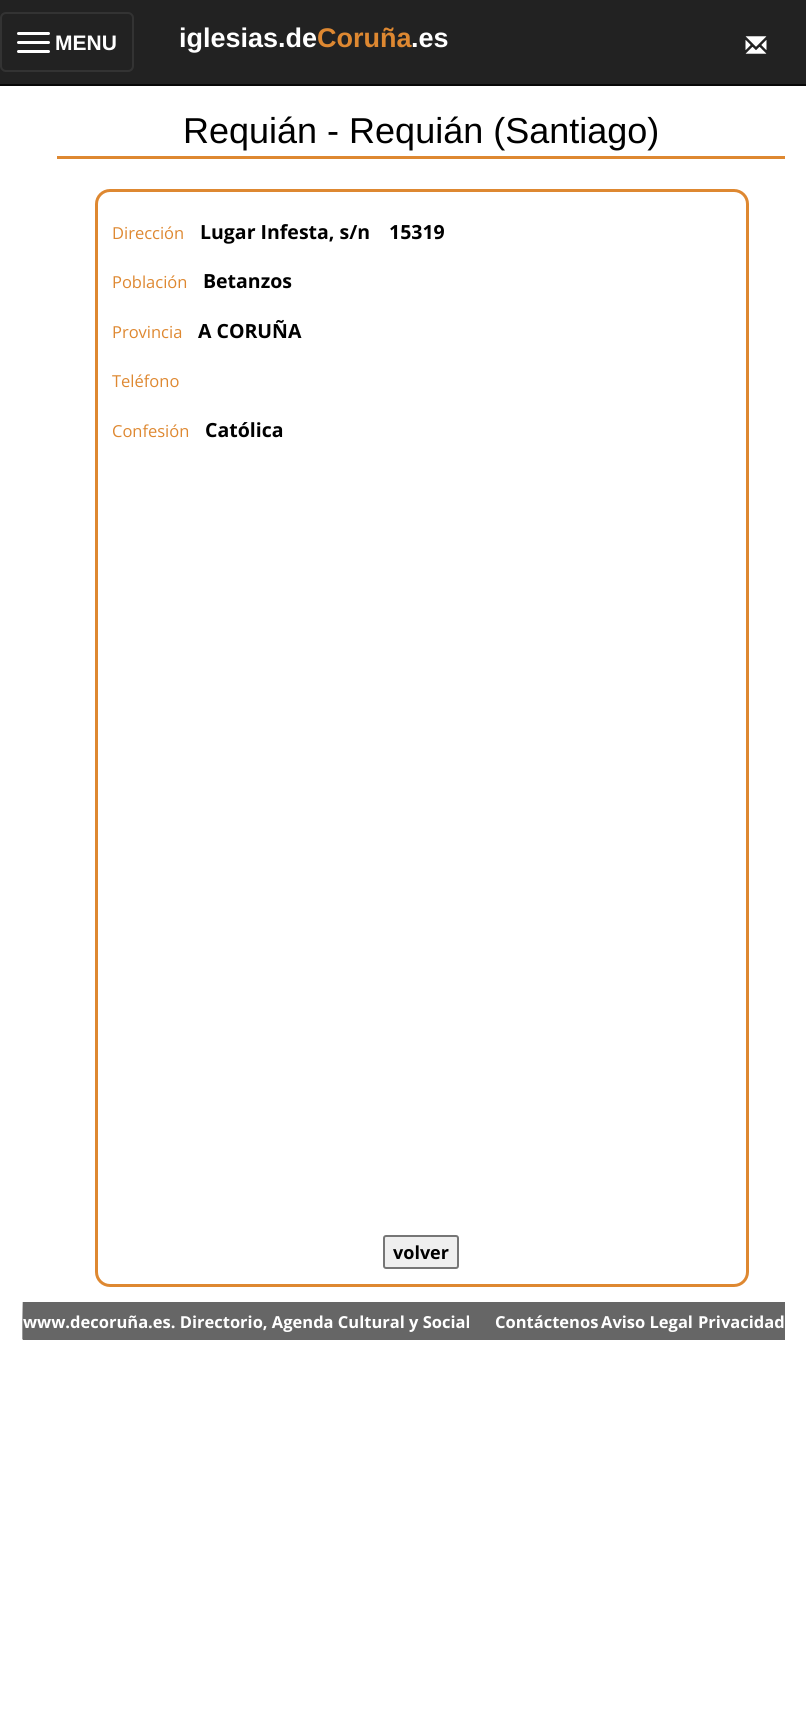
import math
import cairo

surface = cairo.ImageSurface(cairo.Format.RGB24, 806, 1730)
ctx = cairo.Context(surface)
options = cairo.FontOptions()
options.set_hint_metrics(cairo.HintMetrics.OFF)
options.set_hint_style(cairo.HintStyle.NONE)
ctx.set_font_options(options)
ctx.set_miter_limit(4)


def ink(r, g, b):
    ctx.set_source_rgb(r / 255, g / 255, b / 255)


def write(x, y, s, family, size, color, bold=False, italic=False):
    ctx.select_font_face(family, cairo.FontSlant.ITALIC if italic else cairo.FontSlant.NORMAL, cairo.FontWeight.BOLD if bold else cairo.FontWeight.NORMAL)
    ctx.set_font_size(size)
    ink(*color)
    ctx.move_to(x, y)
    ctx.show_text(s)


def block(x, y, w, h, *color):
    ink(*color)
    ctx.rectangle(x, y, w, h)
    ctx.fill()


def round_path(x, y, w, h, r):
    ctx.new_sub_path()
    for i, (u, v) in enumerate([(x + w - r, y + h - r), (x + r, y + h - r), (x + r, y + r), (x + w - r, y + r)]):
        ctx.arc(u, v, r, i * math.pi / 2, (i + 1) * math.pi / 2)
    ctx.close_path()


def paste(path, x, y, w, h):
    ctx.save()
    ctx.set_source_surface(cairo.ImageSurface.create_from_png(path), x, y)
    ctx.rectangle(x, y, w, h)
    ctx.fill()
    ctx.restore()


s1 = dict(family="Liberation Sans", size=21, color=(255, 255, 255), bold=True)
s2 = dict(family="Liberation Sans", size=27, color=(255, 255, 255), bold=True)
s3 = dict(family="Liberation Sans", size=27, color=(222, 136, 49), bold=True)
s4 = dict(family="Liberation Sans", size=36, color=(0, 0, 0))
s5 = dict(family="Open Sans", size=16.5, color=(222, 136, 49))
s6 = dict(family="Open Sans", size=19.5, color=(0, 0, 0), bold=True)
s7 = dict(family="Open Sans", size=18, color=(0, 0, 0), bold=True)
s8 = dict(family="Open Sans", size=16.5, color=(255, 255, 255), bold=True)

ink(255, 255, 255)
ctx.paint()
block(0, 0, 806, 84, 34, 34, 34)
block(0, 84, 806, 2, 8, 8, 8)
round_path(1, 13, 132, 58, 5)
ink(51, 51, 51)
ctx.stroke()
ink(255, 255, 255)
round_path(17, 32, 33, 3, 1.5)
ctx.fill()
round_path(17, 41, 33, 3, 1.5)
ctx.fill()
round_path(17, 50, 33, 3, 1.5)
ctx.fill()
write(55, 50, "MENU", **s1)
write(179, 47, "iglesias.de", **s2)
write(317, 47, "Coruña", **s3)
write(411, 47, ".es", **s2)
paste("pic1.png", 745, 36, 22, 18)
block(57, 156, 728, 3, 222, 136, 49)
write(183, 143, "Requián - Requián (Santiago)", **s4)
round_path(96.5, 190.5, 651, 1095, 13.5)
ink(222, 136, 49)
ctx.set_line_width(3)
ctx.stroke()
write(112, 239, "Dirección", **s5)
write(200, 239, "Lugar Infesta, s/n", **s6)
write(389, 239, "15319", **s6)
write(112, 288, "Población", **s5)
write(203, 288, "Betanzos", **s6)
write(112, 338, "Provincia", **s5)
write(198, 338, "A CORUÑA", **s6)
write(112, 387, "Teléfono", **s5)
write(112, 437, "Confesión", **s5)
write(205, 437, "Católica", **s6)
ink(239, 239, 239)
round_path(384, 1236, 74, 32, 2)
ctx.fill_preserve()
ink(118, 118, 118)
ctx.set_line_width(2)
ctx.stroke()
write(393, 1259, "volver", **s7)
paste("pic2.png", 22, 1302, 1, 38)
block(23, 1302, 762, 38, 102, 102, 102)
write(23, 1328, "www.decoruña.es. Directorio, Agenda Cultural y Social", **s8)
write(495, 1328, "Contáctenos", **s8)
write(601, 1328, "Aviso Legal", **s8)
write(698, 1328, "Privacidad", **s8)
surface.write_to_png("screenshot.png")
